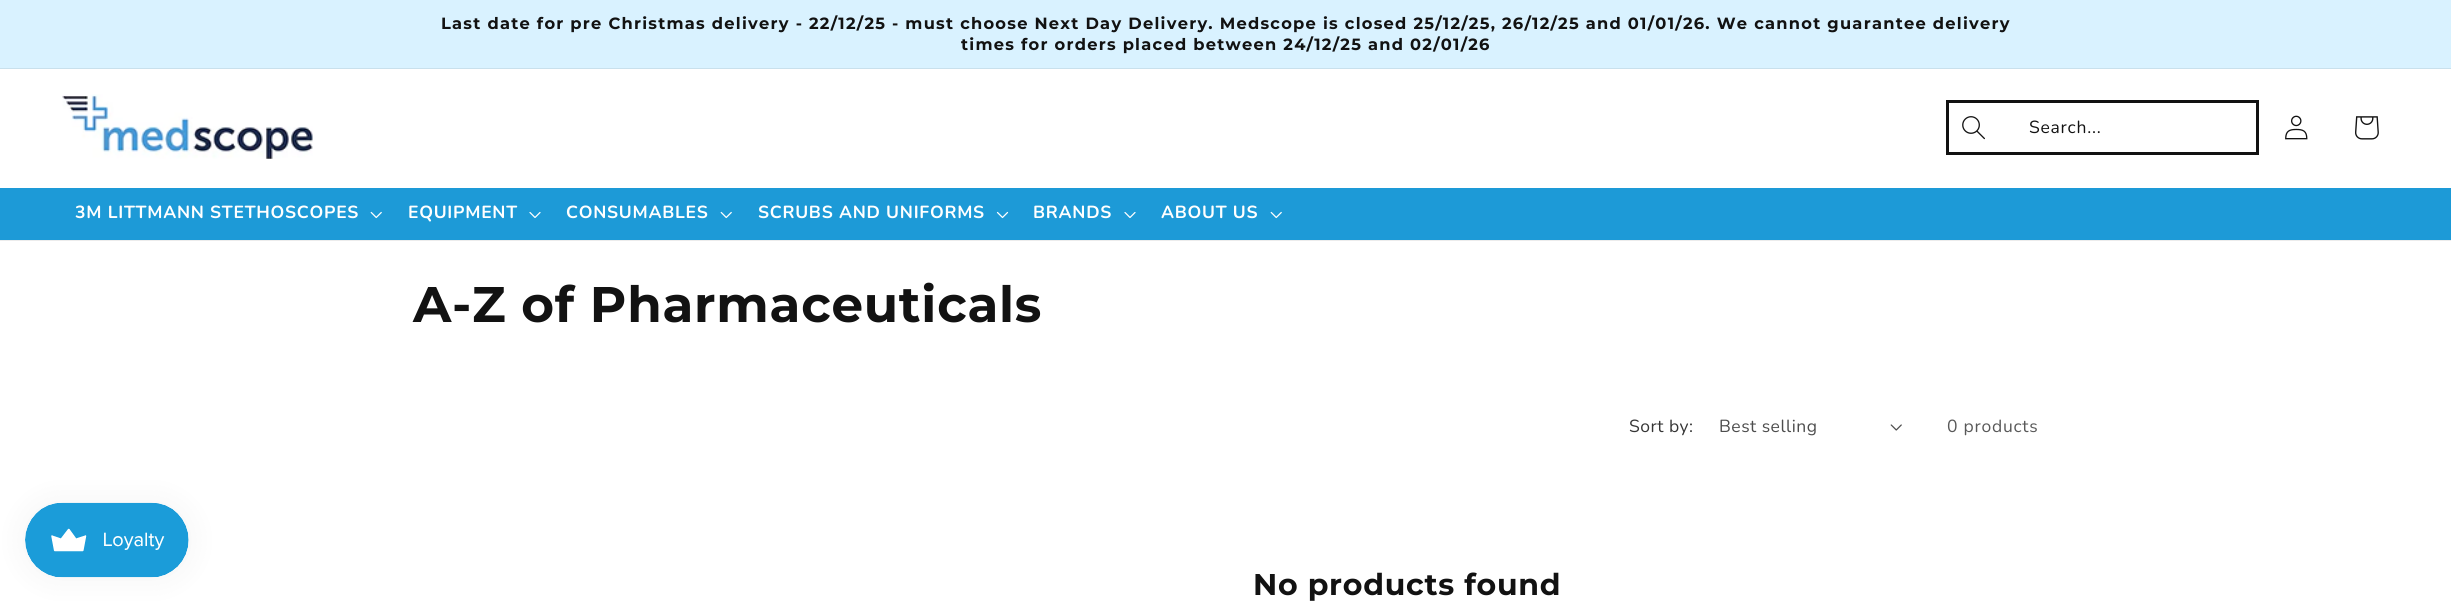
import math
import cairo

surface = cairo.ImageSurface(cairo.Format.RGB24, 2451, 615)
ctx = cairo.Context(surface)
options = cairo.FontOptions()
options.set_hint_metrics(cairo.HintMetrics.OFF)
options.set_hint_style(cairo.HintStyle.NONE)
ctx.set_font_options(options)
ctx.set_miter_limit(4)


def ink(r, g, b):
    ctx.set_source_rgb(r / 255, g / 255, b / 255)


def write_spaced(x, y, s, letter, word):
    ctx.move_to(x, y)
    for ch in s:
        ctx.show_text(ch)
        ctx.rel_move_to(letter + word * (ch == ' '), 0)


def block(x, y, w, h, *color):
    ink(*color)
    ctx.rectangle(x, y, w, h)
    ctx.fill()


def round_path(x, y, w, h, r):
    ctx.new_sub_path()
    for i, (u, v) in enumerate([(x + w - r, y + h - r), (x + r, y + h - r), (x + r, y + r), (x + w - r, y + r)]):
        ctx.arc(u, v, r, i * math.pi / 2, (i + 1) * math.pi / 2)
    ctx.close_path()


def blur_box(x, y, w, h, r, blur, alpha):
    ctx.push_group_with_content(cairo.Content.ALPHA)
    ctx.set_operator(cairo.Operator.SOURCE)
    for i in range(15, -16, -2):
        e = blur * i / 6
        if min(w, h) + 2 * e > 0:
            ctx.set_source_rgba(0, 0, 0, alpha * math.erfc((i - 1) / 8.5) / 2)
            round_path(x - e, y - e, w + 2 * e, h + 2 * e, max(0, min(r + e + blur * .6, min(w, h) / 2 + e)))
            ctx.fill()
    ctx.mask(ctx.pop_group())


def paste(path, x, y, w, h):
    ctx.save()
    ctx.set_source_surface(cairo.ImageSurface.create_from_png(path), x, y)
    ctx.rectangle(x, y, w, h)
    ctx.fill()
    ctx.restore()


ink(255, 255, 255)
ctx.paint()
block(0, 0, 2451, 68, 217, 242, 255)
block(0, 68, 2451, 1, 201, 224, 236)
ctx.select_font_face("Montserrat", cairo.FontSlant.NORMAL, cairo.FontWeight.BOLD)
ctx.set_font_size(16.25)
ink(18, 18, 18)
write_spaced(441, 29, "Last date for pre Christmas delivery - 22/12/25 - must choose Next Day Delivery. Medscope is closed 25/12/25, 26/12/25 and 01/01/26. We cannot guarantee delivery", 1.25, 0)
write_spaced(961, 50, "times for orders placed between 24/12/25 and 02/01/26", 1.25, 0)
block(0, 240, 2451, 1, 236, 236, 236)
paste("pic1.png", 62, 94, 251, 65)
ctx.rectangle(1947.5, 101.5, 310, 52)
ink(18, 18, 18)
ctx.set_line_width(3)
ctx.stroke()
paste("pic2.png", 1962, 116, 23, 24)
ctx.select_font_face("Nunito")
ctx.set_font_size(17.5)
write_spaced(2029, 133, "Search...", 0.75, 0)
paste("pic3.png", 2285, 115, 23, 25)
paste("pic4.png", 2355, 116, 24, 24)
block(0, 188, 2451, 52, 29, 154, 215)
ctx.select_font_face("Nunito", cairo.FontSlant.NORMAL, cairo.FontWeight.BOLD)
ink(255, 255, 255)
write_spaced(75, 218, "3M LITTMANN STETHOSCOPES", 0.75, 0)
paste("pic5.png", 370, 211, 12, 8)
write_spaced(408, 218, "EQUIPMENT", 0.75, 0)
paste("pic6.png", 529, 212, 12, 6)
write_spaced(566, 218, "CONSUMABLES", 0.75, 0)
paste("pic5.png", 720, 211, 12, 8)
write_spaced(758, 218, "SCRUBS AND UNIFORMS", 0.75, 0)
paste("pic7.png", 996, 211, 13, 8)
write_spaced(1033, 218, "BRANDS", 0.75, 0)
paste("pic6.png", 1124, 212, 12, 6)
write_spaced(1161, 218, "ABOUT US", 0.75, 0)
paste("pic5.png", 1270, 211, 12, 8)
ink(0, 0, 0)
blur_box(25, 503, 164, 75, 37.5, 15.5, 0.05)
paste("pic8.png", 25, 502, 164, 76)
ctx.select_font_face("Montserrat", cairo.FontSlant.NORMAL, cairo.FontWeight.BOLD)
ctx.set_font_size(50)
ink(18, 18, 18)
write_spaced(413, 322, "A-Z of Pharmaceuticals", 0.75, 0)
ctx.select_font_face("Nunito")
ctx.set_font_size(17.5)
ink(54, 54, 54)
write_spaced(1629, 432, "Sort by:", 0.5, 0)
ink(77, 77, 77)
write_spaced(1719, 432, "Best selling", 0.5, 0)
paste("pic9.png", 1890, 424, 12, 7)
ink(89, 89, 89)
write_spaced(1947, 432, "0 products", 0.75, 0)
ctx.select_font_face("Montserrat", cairo.FontSlant.NORMAL, cairo.FontWeight.BOLD)
ctx.set_font_size(30)
ink(18, 18, 18)
write_spaced(1253, 595, "No products found", 0.75, 0)
surface.write_to_png("screenshot.png")
